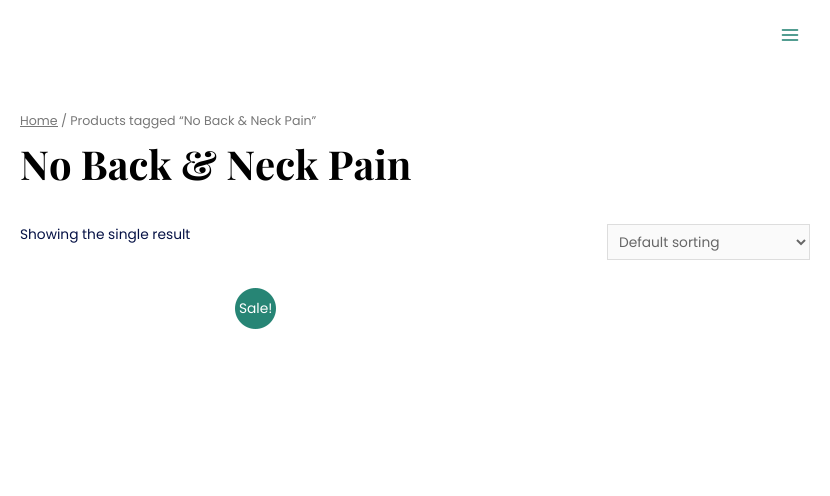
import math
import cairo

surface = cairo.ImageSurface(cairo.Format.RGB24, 830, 496)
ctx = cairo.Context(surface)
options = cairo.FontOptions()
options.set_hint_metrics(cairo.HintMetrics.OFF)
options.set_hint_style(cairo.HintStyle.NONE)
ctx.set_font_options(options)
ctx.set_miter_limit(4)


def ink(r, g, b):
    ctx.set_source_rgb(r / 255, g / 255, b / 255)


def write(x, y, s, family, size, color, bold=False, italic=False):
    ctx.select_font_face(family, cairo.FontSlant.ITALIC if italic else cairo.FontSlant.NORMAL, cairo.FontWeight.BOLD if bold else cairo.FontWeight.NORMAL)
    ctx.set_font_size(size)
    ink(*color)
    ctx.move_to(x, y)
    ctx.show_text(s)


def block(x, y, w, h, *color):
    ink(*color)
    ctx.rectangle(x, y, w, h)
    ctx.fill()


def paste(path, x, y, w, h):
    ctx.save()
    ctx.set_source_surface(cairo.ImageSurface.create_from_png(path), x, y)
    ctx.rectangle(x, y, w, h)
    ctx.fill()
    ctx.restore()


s1 = dict(family="Poppins", size=12.6, color=(119, 119, 119))
s2 = dict(family="Playfair Display", size=40, color=(0, 0, 0), bold=True)
s3 = dict(family="Poppins", size=13.75, color=(5, 17, 69))
s4 = dict(family="Poppins", size=13.75, color=(102, 102, 102))
s5 = dict(family="Poppins", size=13.75, color=(255, 255, 255))

ink(255, 255, 255)
ctx.paint()
paste("pic1.png", 781, 29, 18, 12)
block(20, 126, 38, 1, 119, 119, 119)
write(20, 125, "Home / Products tagged “No Back & Neck Pain”", **s1)
write(20, 180, "No Back & Neck Pain", **s2)
write(20, 239, "Showing the single result", **s3)
ink(250, 250, 250)
ctx.rectangle(607.5, 224.5, 202, 35)
ctx.fill_preserve()
ink(221, 221, 221)
ctx.set_line_width(1)
ctx.stroke()
ctx.new_path()
ctx.move_to(797, 240)
ctx.line_to(801, 244)
ctx.line_to(805, 240)
ink(102, 102, 102)
ctx.set_line_width(2)
ctx.stroke()
write(619, 247, "Default sorting", **s4)
ink(39, 133, 117)
ctx.new_path()
ctx.arc(255.5, 308.5, 20.5, 0, 2 * math.pi)
ctx.fill()
write(239, 313, "Sale!", **s5)
surface.write_to_png("screenshot.png")
